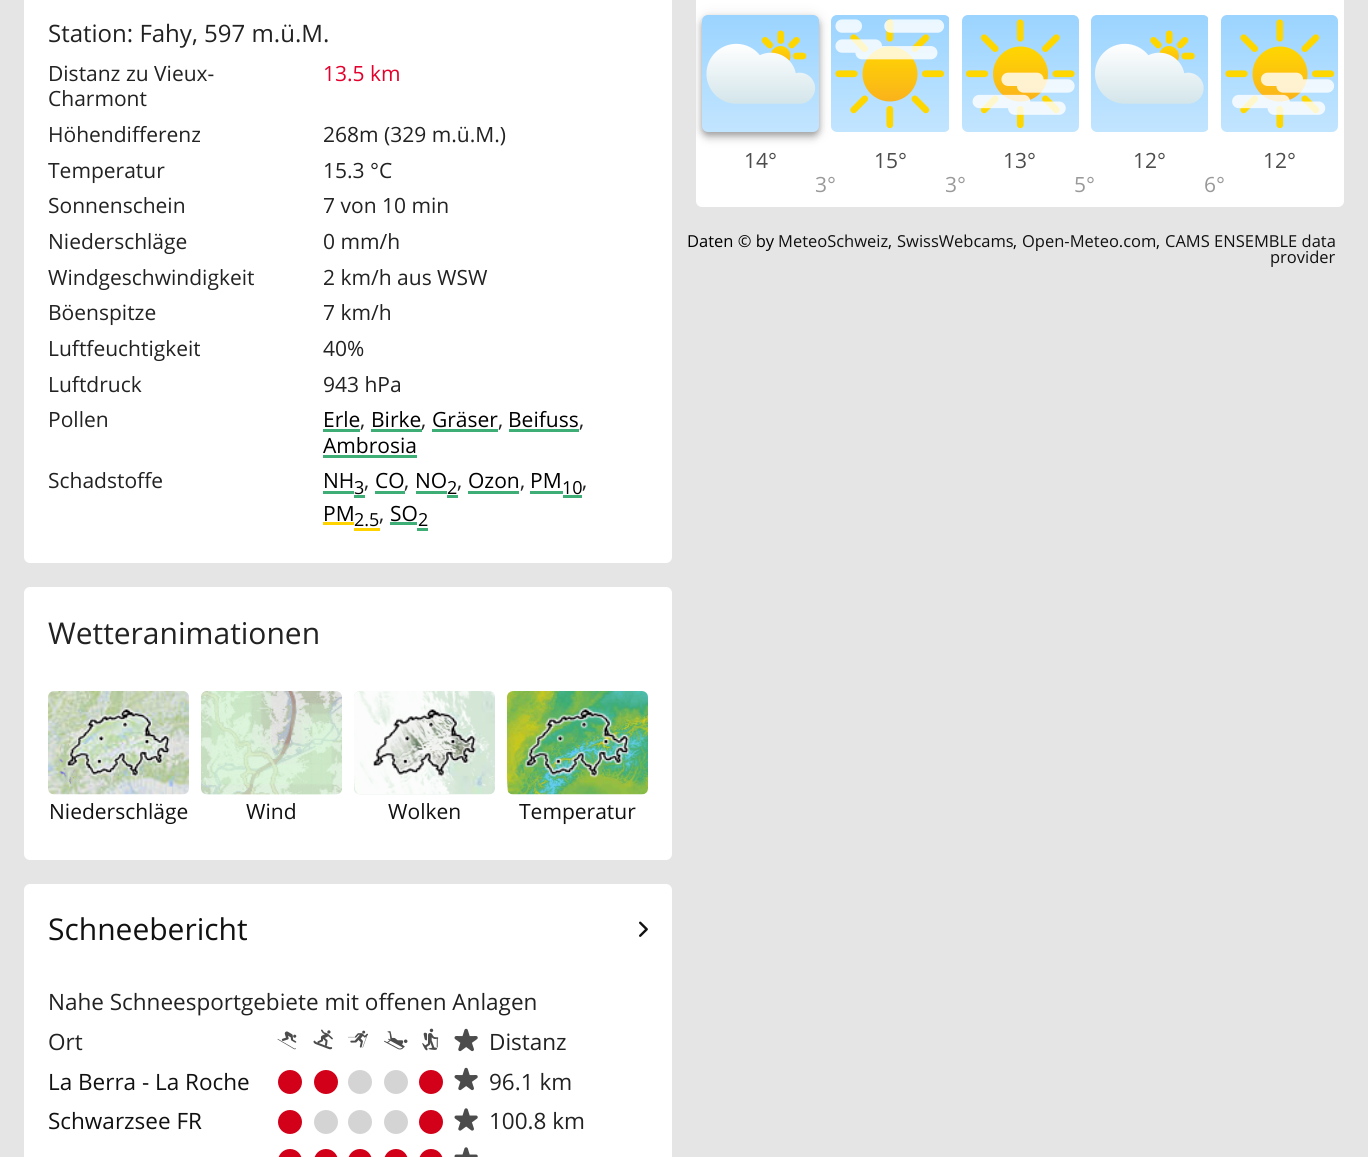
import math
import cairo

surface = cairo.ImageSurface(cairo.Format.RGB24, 1368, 1157)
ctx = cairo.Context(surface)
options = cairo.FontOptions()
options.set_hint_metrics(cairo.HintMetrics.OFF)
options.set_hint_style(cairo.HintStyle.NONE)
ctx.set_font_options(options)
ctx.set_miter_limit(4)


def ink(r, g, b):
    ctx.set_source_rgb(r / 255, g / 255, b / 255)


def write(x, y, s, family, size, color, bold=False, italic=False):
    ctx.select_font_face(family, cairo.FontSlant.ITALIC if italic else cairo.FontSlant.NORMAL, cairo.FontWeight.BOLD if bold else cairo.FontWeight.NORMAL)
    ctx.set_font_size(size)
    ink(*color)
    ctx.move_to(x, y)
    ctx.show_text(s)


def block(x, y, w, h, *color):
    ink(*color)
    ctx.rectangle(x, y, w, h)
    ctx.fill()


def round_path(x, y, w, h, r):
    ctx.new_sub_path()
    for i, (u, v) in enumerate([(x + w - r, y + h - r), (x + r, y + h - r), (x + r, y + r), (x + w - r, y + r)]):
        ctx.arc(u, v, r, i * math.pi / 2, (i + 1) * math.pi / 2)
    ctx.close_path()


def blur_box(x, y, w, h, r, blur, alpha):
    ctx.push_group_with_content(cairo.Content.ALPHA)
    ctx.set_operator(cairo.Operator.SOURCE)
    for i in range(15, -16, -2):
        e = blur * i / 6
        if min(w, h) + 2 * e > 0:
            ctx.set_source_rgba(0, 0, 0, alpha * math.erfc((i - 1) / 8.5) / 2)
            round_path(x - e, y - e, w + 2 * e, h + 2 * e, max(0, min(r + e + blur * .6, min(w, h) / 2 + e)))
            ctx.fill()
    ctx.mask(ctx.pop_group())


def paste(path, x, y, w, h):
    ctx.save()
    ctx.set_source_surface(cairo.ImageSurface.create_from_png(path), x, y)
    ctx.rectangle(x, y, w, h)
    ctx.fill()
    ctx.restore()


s1 = dict(family="Open Sans", size=24, color=(34, 34, 34))
s2 = dict(family="Open Sans", size=21, color=(34, 34, 34))
s3 = dict(family="Open Sans", size=21, color=(228, 0, 44))
s4 = dict(family="Open Sans", size=21, color=(0, 0, 0))
s5 = dict(family="Open Sans", size=18, color=(0, 0, 0))
s6 = dict(family="Open Sans", size=30, color=(34, 34, 34))
s7 = dict(family="Open Sans", size=21, color=(17, 17, 17))
s8 = dict(family="Open Sans", size=30, color=(17, 17, 17))
s9 = dict(family="Open Sans", size=22.5, color=(34, 34, 34))
s10 = dict(family="Open Sans", size=22.5, color=(17, 17, 17))
s11 = dict(family="Open Sans", size=21, color=(76, 76, 76))
s12 = dict(family="Open Sans", size=21, color=(153, 153, 153))
s13 = dict(family="Open Sans", size=16.5, color=(0, 0, 0))
s14 = dict(family="Open Sans", size=16.5, color=(17, 17, 17))

ink(229, 229, 229)
ctx.paint()
ink(255, 255, 255)
round_path(24, -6, 648, 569, 6)
ctx.fill()
write(48, 42, "Station: Fahy, 597 m.ü.M.", **s1)
write(48, 81, "Distanz zu Vieux-", **s2)
write(48, 106, "Charmont", **s2)
write(323, 81, "13.5 km", **s3)
write(48, 142, "Höhendifferenz", **s2)
write(323, 142, "268m (329 m.ü.M.)", **s2)
write(48, 178, "Temperatur", **s2)
write(323, 178, "15.3 °C", **s2)
write(48, 213, "Sonnenschein", **s2)
write(323, 213, "7 von 10 min", **s2)
write(48, 249, "Niederschläge", **s2)
write(323, 249, "0 mm/h", **s2)
write(48, 285, "Windgeschwindigkeit", **s2)
write(323, 285, "2 km/h aus WSW", **s2)
write(48, 320, "Böenspitze", **s2)
write(323, 320, "7 km/h", **s2)
write(48, 356, "Luftfeuchtigkeit", **s2)
write(323, 356, "40%", **s2)
write(48, 392, "Luftdruck", **s2)
write(323, 392, "943 hPa", **s2)
write(48, 427, "Pollen", **s2)
write(323, 427, "Erle", **s4)
block(323, 429, 37, 3, 62, 173, 118)
write(360, 427, ",", **s2)
write(371, 427, "Birke", **s4)
block(371, 429, 51, 3, 62, 173, 118)
write(421, 427, ",", **s2)
write(432, 427, "Gräser", **s4)
block(432, 429, 66, 3, 62, 173, 118)
write(498, 427, ",", **s2)
write(508, 427, "Beifuss", **s4)
block(509, 429, 70, 3, 62, 173, 118)
write(579, 427, ",", **s2)
write(323, 453, "Ambrosia", **s4)
block(323, 455, 94, 3, 62, 173, 118)
write(48, 488, "Schadstoffe", **s2)
write(323, 488, "NH", **s4)
write(354, 494, "3", **s5)
block(323, 491, 31, 3, 62, 173, 118)
block(354, 495, 11, 3, 62, 173, 118)
write(364, 488, ",", **s2)
write(375, 488, "CO", **s4)
block(375, 491, 30, 3, 62, 173, 118)
write(404, 488, ",", **s2)
write(415, 488, "NO", **s4)
write(447, 494, "2", **s5)
block(416, 491, 31, 3, 62, 173, 118)
block(447, 495, 11, 3, 62, 173, 118)
write(457, 488, ",", **s2)
write(468, 488, "Ozon", **s4)
block(468, 491, 51, 3, 62, 173, 118)
write(520, 488, ",", **s2)
write(530, 488, "PM", **s4)
write(562, 494, "10", **s5)
block(530, 491, 33, 3, 62, 173, 118)
block(563, 495, 19, 3, 62, 173, 118)
write(582, 488, ",", **s2)
write(323, 521, "PM", **s4)
write(354, 526, "2.5", **s5)
block(323, 522, 31, 3, 255, 211, 0)
block(354, 528, 26, 3, 255, 211, 0)
write(379, 521, ",", **s2)
write(390, 521, "SO", **s4)
write(418, 526, "2", **s5)
block(390, 522, 27, 3, 62, 173, 118)
block(417, 528, 11, 3, 62, 173, 118)
ink(255, 255, 255)
round_path(24, 587, 648, 273, 6)
ctx.fill()
write(48, 644, "Wetteranimationen", **s6)
paste("pic1.png", 48, 691, 141, 104)
paste("pic3.png", 56, 755, 61, 36)
paste("pic2.png", 65, 708, 106, 70)
write(49, 819, "Niederschläge", **s7)
paste("pic4.png", 201, 691, 141, 104)
paste("pic5.png", 201, 691, 141, 104)
write(246, 819, "Wind", **s7)
paste("pic6.png", 354, 691, 141, 104)
paste("pic7.png", 354, 691, 141, 103)
paste("pic8.png", 373, 708, 104, 69)
write(388, 819, "Wolken", **s7)
paste("pic9.png", 507, 691, 141, 104)
paste("pic10.png", 524, 707, 106, 71)
write(519, 819, "Temperatur", **s7)
ink(255, 255, 255)
round_path(24, 884, 648, 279, 6)
ctx.fill()
write(48, 940, "Schneebericht", **s8)
paste("pic11.png", 639, 921, 9, 16)
write(48, 1010, "Nahe Schneesportgebiete mit offenen Anlagen", **s9)
write(48, 1050, "Ort", **s9)
paste("pic12.png", 277, 1031, 20, 19)
paste("pic13.png", 313, 1029, 20, 21)
paste("pic14.png", 348, 1030, 20, 18)
paste("pic15.png", 384, 1031, 24, 19)
paste("pic16.png", 422, 1028, 17, 23)
paste("pic17.png", 454, 1028, 24, 24)
write(489, 1050, "Distanz", **s9)
write(48, 1090, "La Berra - La Roche", **s10)
ink(210, 0, 25)
ctx.new_path()
ctx.arc(290, 1082, 12, 0, 2 * math.pi)
ctx.fill()
ctx.arc(326, 1082, 12, 0, 2 * math.pi)
ctx.fill()
ink(212, 212, 212)
ctx.arc(360, 1082, 12, 0, 2 * math.pi)
ctx.fill()
ctx.arc(396, 1082, 12, 0, 2 * math.pi)
ctx.fill()
ink(210, 0, 25)
ctx.arc(431, 1082, 12, 0, 2 * math.pi)
ctx.fill()
paste("pic17.png", 454, 1067, 24, 24)
write(489, 1090, "96.1 km", **s9)
write(48, 1129, "Schwarzsee FR", **s10)
ink(210, 0, 25)
ctx.new_path()
ctx.arc(290, 1122, 12, 0, 2 * math.pi)
ctx.fill()
ink(212, 212, 212)
ctx.arc(326, 1122, 12, 0, 2 * math.pi)
ctx.fill()
ctx.arc(360, 1122, 12, 0, 2 * math.pi)
ctx.fill()
ctx.arc(396, 1122, 12, 0, 2 * math.pi)
ctx.fill()
ink(210, 0, 25)
ctx.arc(431, 1122, 12, 0, 2 * math.pi)
ctx.fill()
paste("pic18.png", 454, 1108, 24, 23)
write(489, 1129, "100.8 km", **s9)
ink(210, 0, 25)
round_path(278, 1149, 24, 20, 12)
ctx.fill()
round_path(314, 1149, 24, 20, 12)
ctx.fill()
round_path(348, 1149, 24, 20, 12)
ctx.fill()
round_path(384, 1149, 24, 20, 12)
ctx.fill()
round_path(419, 1149, 24, 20, 12)
ctx.fill()
paste("pic19.png", 454, 1147, 24, 10)
ink(255, 255, 255)
round_path(696, -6, 648, 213, 6)
ctx.fill()
ink(0, 0, 0)
blur_box(702, 18, 117, 117, 6, 3, 0.2)
ctx.save()
round_path(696, -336, 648, 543, 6)
ctx.clip()
blur_box(702, 17, 117, 117, 6, 7.5, 0.12)
ctx.restore()
blur_box(702, 21, 117, 117, 6, 4, 0.14)
paste("pic20.png", 702, 15, 117, 117)
paste("pic21.png", 831, 15, 118, 117)
paste("pic22.png", 962, 15, 117, 117)
paste("pic23.png", 1091, 15, 117, 117)
paste("pic24.png", 1221, 15, 117, 117)
write(744, 168, "14°", **s11)
write(874, 168, "15°", **s11)
write(1003, 168, "13°", **s11)
write(1133, 168, "12°", **s11)
write(1263, 168, "12°", **s11)
write(815, 192, "3°", **s12)
write(945, 192, "3°", **s12)
write(1074, 192, "5°", **s12)
write(1204, 192, "6°", **s12)
write(687, 247, "Daten © by", **s13)
write(778, 247, "MeteoSchweiz", **s14)
write(888, 247, ",", **s13)
write(897, 247, "SwissWebcams", **s14)
write(1013, 247, ",", **s13)
write(1022, 247, "Open-Meteo.com", **s14)
write(1156, 247, ",", **s13)
write(1165, 247, "CAMS ENSEMBLE data", **s14)
write(1270, 263, "provider", **s14)
surface.write_to_png("screenshot.png")
